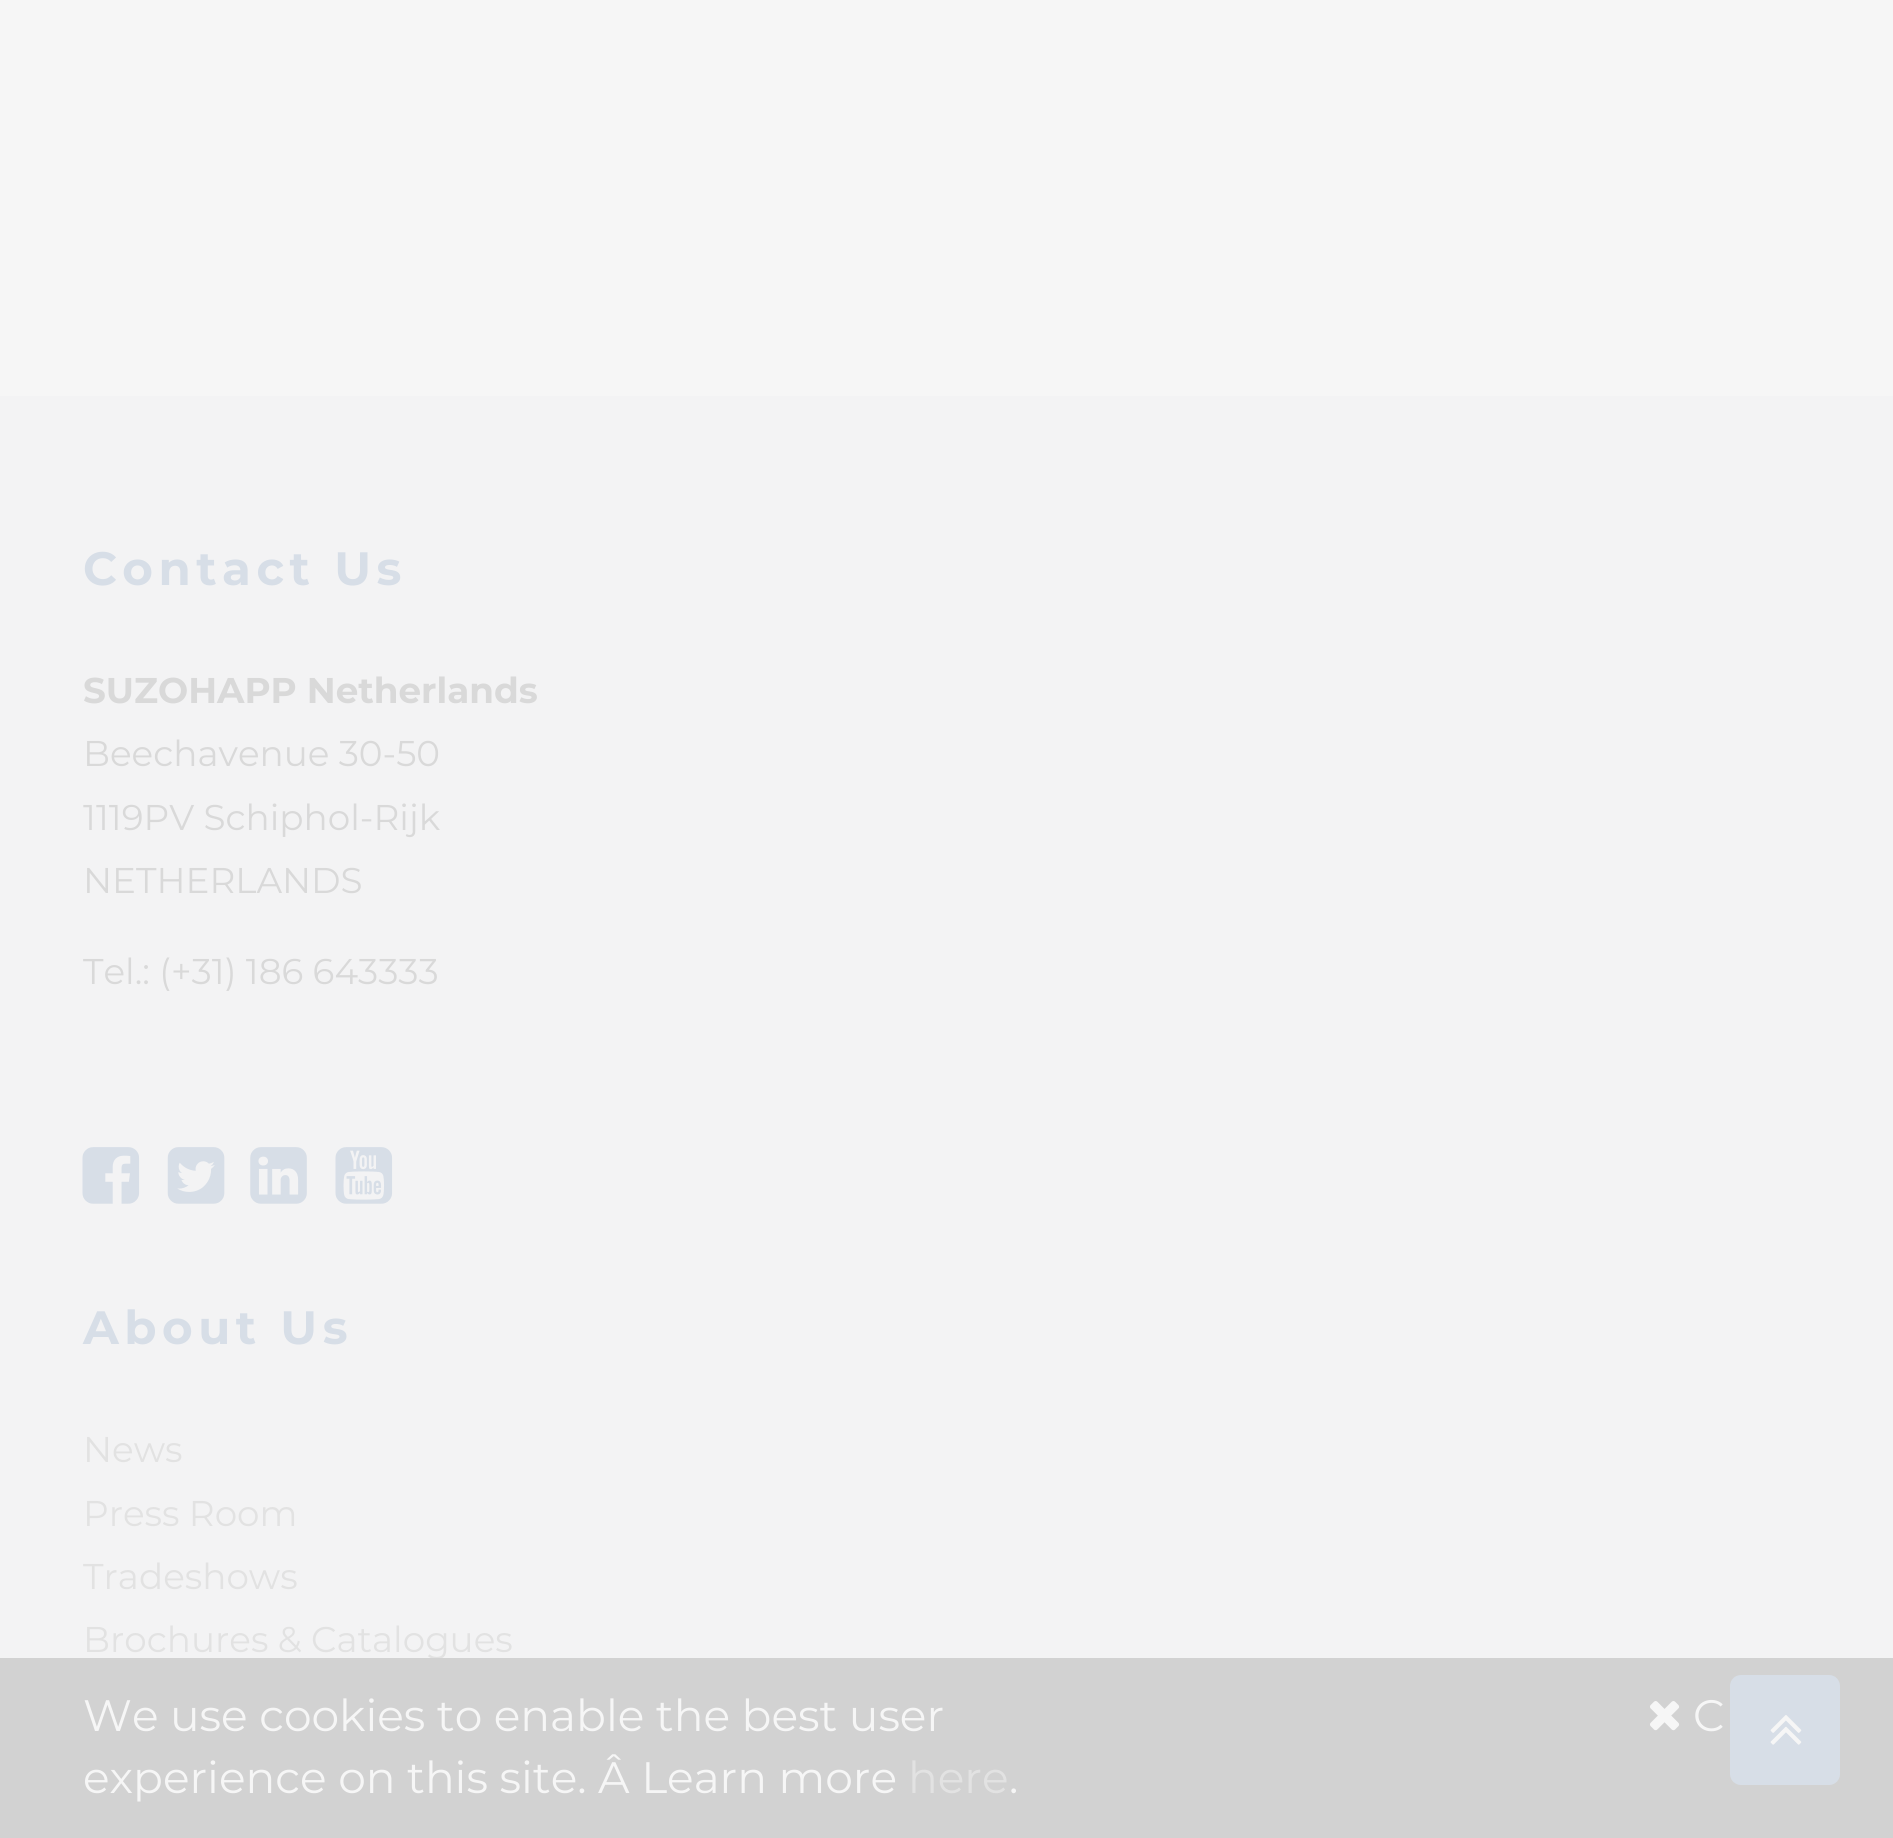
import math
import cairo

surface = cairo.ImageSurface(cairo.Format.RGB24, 1893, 1838)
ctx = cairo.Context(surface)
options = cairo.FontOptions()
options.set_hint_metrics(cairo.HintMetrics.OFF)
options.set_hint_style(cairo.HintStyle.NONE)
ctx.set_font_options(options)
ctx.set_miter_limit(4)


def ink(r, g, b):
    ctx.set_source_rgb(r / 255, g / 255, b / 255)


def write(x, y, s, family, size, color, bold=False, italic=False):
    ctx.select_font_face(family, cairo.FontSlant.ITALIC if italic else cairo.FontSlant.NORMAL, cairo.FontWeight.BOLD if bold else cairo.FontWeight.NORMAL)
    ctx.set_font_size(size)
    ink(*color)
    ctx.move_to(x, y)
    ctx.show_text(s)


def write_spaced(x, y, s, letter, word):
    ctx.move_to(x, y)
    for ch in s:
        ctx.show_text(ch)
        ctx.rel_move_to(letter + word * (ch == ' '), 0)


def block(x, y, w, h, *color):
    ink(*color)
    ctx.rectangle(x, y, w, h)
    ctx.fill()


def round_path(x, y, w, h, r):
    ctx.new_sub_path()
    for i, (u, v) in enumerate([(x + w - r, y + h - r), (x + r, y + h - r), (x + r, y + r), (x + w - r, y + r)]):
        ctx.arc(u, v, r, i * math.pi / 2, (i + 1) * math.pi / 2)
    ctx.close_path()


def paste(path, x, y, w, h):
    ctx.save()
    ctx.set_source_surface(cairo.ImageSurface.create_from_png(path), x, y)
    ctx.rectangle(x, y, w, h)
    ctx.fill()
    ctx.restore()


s1 = dict(family="Montserrat", size=35.75, color=(217, 217, 217), bold=True)
s2 = dict(family="Montserrat", size=35.75, color=(217, 217, 217))
s3 = dict(family="Montserrat", size=35.75, color=(226, 226, 226))
s4 = dict(family="Montserrat", size=44, color=(246, 246, 246))
s5 = dict(family="Montserrat", size=44, color=(226, 226, 226))

ink(246, 246, 246)
ctx.paint()
block(0, 396, 1893, 1262, 243, 243, 244)
ctx.select_font_face("Montserrat", cairo.FontSlant.NORMAL, cairo.FontWeight.BOLD)
ctx.set_font_size(46.75)
ink(215, 222, 231)
write_spaced(83, 585, "Contact Us", 5.5, 0)
write(83, 703, "SUZOHAPP Netherlands", **s1)
write(83, 766, "Beechavenue 30-50", **s2)
write(83, 830, "1119PV Schiphol-Rijk", **s2)
write(83, 893, "NETHERLANDS", **s2)
write(83, 984, "Tel.: (+31) 186 643333", **s2)
paste("pic1.png", 82, 1147, 58, 57)
paste("pic2.png", 167, 1147, 58, 57)
paste("pic3.png", 250, 1147, 57, 57)
paste("pic4.png", 335, 1147, 58, 57)
ctx.select_font_face("Montserrat", cairo.FontSlant.NORMAL, cairo.FontWeight.BOLD)
ctx.set_font_size(46.75)
ink(215, 222, 231)
write_spaced(83, 1344, "About Us", 5.5, 0)
write(83, 1462, "News", **s3)
write(83, 1526, "Press Room", **s3)
write(83, 1589, "Tradeshows", **s3)
write(83, 1652, "Brochures & Catalogues", **s3)
block(0, 1658, 1893, 180, 210, 210, 210)
write(83, 1731, "We use cookies to enable the best user", **s4)
write(83, 1793, "experience on this site. Â Learn more", **s4)
write(908, 1793, "here", **s5)
write(1009, 1793, ".", **s4)
paste("pic5.png", 1650, 1701, 30, 30)
write(1693, 1731, "C", **s4)
ink(215, 222, 231)
round_path(1730, 1675, 110, 110, 11)
ctx.fill()
paste("pic6.png", 1770, 1715, 32, 30)
surface.write_to_png("screenshot.png")
